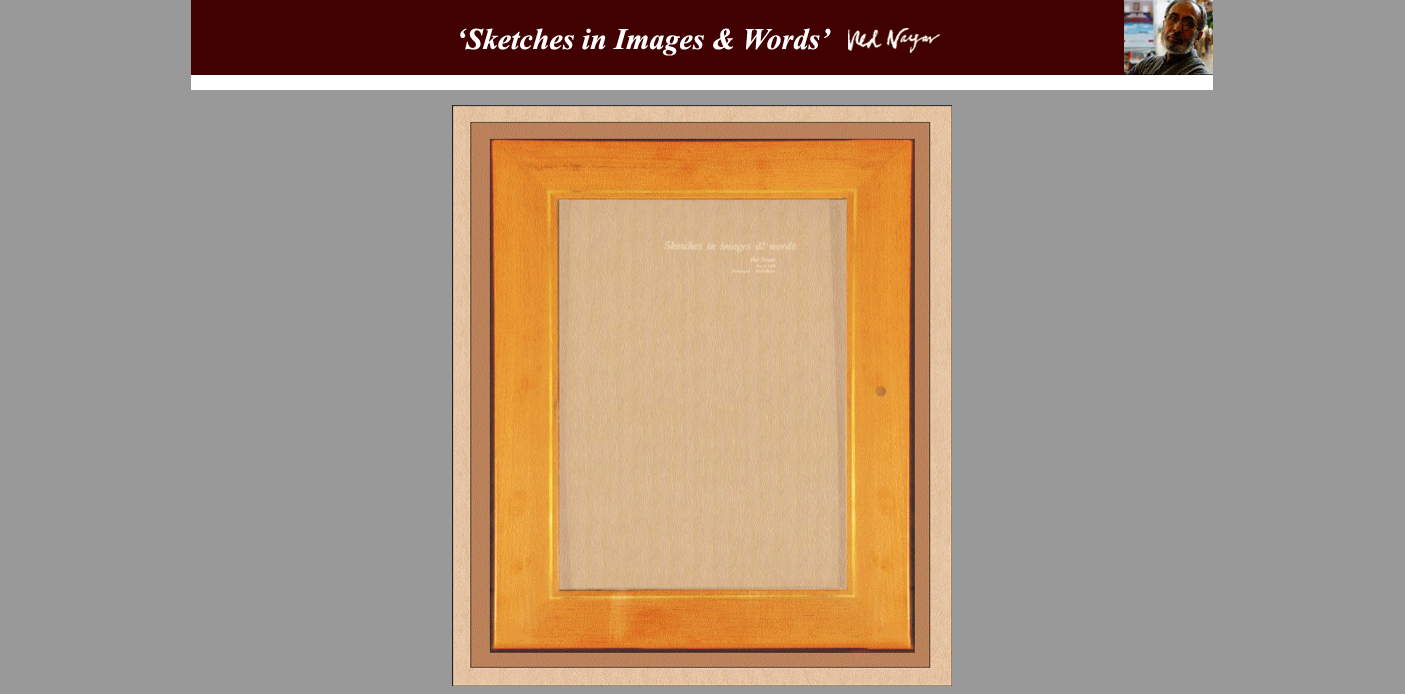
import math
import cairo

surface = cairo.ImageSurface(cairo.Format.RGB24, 1405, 694)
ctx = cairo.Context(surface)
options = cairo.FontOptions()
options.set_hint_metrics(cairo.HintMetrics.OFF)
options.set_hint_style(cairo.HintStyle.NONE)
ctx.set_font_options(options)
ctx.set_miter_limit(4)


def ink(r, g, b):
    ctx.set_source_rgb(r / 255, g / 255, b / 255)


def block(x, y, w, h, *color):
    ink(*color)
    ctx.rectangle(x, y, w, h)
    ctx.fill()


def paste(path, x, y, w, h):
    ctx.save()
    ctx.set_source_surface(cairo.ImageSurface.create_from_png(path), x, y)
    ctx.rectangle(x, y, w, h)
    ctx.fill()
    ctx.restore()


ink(153, 153, 153)
ctx.paint()
block(191, 0, 933, 75, 65, 1, 1)
paste("pic1.png", 459, 26, 481, 30)
paste("pic2.png", 1124, 0, 89, 75)
block(191, 75, 1022, 15, 255, 255, 255)
paste("pic3.png", 452, 105, 500, 581)
surface.write_to_png("screenshot.png")
